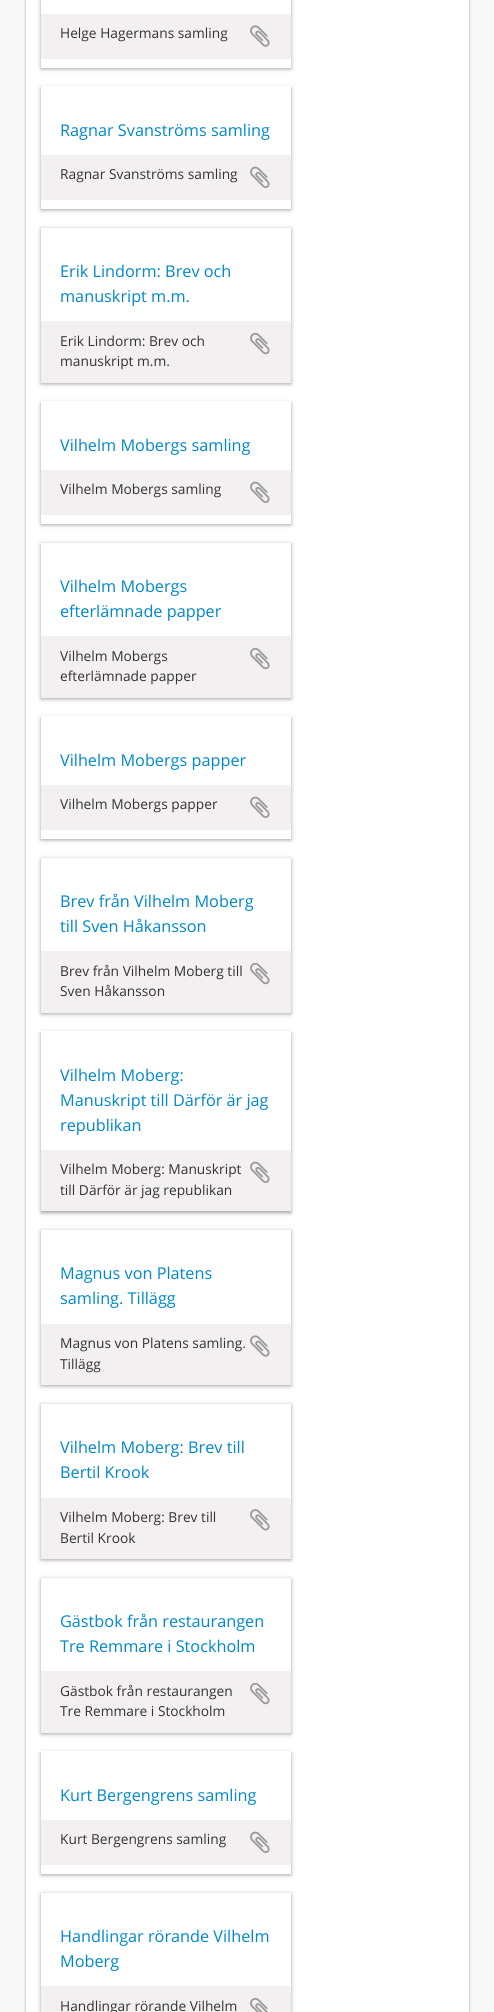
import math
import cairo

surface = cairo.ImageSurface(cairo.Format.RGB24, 494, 2012)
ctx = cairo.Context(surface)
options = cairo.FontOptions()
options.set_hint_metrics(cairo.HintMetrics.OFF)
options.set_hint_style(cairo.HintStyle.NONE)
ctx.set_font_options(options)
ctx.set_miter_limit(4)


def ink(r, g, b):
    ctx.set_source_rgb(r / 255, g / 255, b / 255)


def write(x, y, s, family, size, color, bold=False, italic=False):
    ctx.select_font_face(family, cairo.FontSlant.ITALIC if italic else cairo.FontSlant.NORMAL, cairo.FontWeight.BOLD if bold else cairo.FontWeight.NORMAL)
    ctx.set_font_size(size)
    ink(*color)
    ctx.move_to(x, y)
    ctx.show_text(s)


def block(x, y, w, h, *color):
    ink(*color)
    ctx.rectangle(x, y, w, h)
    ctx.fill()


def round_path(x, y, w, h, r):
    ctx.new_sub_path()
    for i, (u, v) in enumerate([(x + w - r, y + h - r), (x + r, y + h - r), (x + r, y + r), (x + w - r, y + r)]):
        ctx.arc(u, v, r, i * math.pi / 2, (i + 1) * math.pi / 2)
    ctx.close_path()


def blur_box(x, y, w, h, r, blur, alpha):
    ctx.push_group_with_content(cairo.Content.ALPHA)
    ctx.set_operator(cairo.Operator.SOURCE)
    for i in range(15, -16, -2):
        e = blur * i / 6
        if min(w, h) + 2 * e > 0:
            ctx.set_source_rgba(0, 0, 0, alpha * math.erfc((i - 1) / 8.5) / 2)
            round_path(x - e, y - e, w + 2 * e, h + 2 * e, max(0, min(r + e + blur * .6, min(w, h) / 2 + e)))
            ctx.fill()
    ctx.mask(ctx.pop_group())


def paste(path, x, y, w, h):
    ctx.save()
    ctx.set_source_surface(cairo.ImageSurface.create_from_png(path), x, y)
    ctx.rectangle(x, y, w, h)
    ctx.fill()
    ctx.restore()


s1 = dict(family="Open Sans", size=13.75, color=(51, 51, 51))
s2 = dict(family="Open Sans", size=16.25, color=(0, 136, 204))

ink(248, 248, 248)
ctx.paint()
ink(0, 0, 0)
blur_box(25, -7, 445, 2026, 5, 0.5, 0.2)
ink(255, 255, 255)
ctx.rectangle(25.5, -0.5, 444, 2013)
ctx.fill_preserve()
ink(217, 217, 217)
ctx.set_line_width(1)
ctx.stroke()
ink(25, 25, 25)
blur_box(41, -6, 250, 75, 0, 2, 0.4)
block(41, 0, 250, 68, 255, 255, 255)
block(41, 14, 250, 45, 242, 240, 240)
write(60, 38, "Helge Hagermans samling", **s1)
paste("pic1.png", 250, 25, 20, 22)
ink(25, 25, 25)
blur_box(41, 88, 250, 122, 0, 2, 0.4)
block(41, 86, 250, 123, 255, 255, 255)
write(60, 136, "Ragnar Svanströms samling", **s2)
block(41, 155, 250, 45, 242, 240, 240)
write(60, 179, "Ragnar Svanströms samling", **s1)
paste("pic2.png", 250, 166, 20, 22)
ink(25, 25, 25)
blur_box(41, 229, 250, 155, 0, 2, 0.4)
block(41, 228, 250, 93, 255, 255, 255)
write(60, 277, "Erik Lindorm: Brev och", **s2)
write(60, 302, "manuskript m.m.", **s2)
block(41, 321, 250, 62, 242, 240, 240)
write(60, 346, "Erik Lindorm: Brev och", **s1)
paste("pic3.png", 250, 332, 20, 23)
write(60, 366, "manuskript m.m.", **s1)
ink(25, 25, 25)
blur_box(41, 403, 250, 122, 0, 2, 0.4)
block(41, 401, 250, 123, 255, 255, 255)
write(60, 451, "Vilhelm Mobergs samling", **s2)
block(41, 470, 250, 45, 242, 240, 240)
write(60, 494, "Vilhelm Mobergs samling", **s1)
paste("pic2.png", 250, 481, 20, 22)
ink(25, 25, 25)
blur_box(41, 544, 250, 155, 0, 2, 0.4)
block(41, 543, 250, 93, 255, 255, 255)
write(60, 592, "Vilhelm Mobergs", **s2)
write(60, 617, "efterlämnade papper", **s2)
block(41, 636, 250, 62, 242, 240, 240)
write(60, 661, "Vilhelm Mobergs", **s1)
paste("pic3.png", 250, 647, 20, 23)
write(60, 681, "efterlämnade papper", **s1)
ink(25, 25, 25)
blur_box(41, 718, 250, 122, 0, 2, 0.4)
block(41, 716, 250, 123, 255, 255, 255)
write(60, 766, "Vilhelm Mobergs papper", **s2)
block(41, 785, 250, 45, 242, 240, 240)
write(60, 809, "Vilhelm Mobergs papper", **s1)
paste("pic2.png", 250, 796, 20, 22)
ink(25, 25, 25)
blur_box(41, 859, 250, 155, 0, 2, 0.4)
block(41, 858, 250, 93, 255, 255, 255)
write(60, 907, "Brev från Vilhelm Moberg", **s2)
write(60, 932, "till Sven Håkansson", **s2)
block(41, 951, 250, 62, 242, 240, 240)
write(60, 976, "Brev från Vilhelm Moberg till", **s1)
paste("pic3.png", 250, 962, 20, 23)
write(60, 996, "Sven Håkansson", **s1)
ink(25, 25, 25)
blur_box(41, 1033, 250, 180, 0, 2, 0.4)
block(41, 1031, 250, 119, 255, 255, 255)
write(60, 1081, "Vilhelm Moberg:", **s2)
write(60, 1106, "Manuskript till Därför är jag", **s2)
write(60, 1131, "republikan", **s2)
block(41, 1150, 250, 61, 242, 240, 240)
write(60, 1174, "Vilhelm Moberg: Manuskript", **s1)
paste("pic2.png", 250, 1161, 20, 22)
write(60, 1195, "till Därför är jag republikan", **s1)
ink(25, 25, 25)
blur_box(41, 1231, 250, 155, 0, 2, 0.4)
block(41, 1230, 250, 94, 255, 255, 255)
write(60, 1279, "Magnus von Platens", **s2)
write(60, 1304, "samling. Tillägg", **s2)
block(41, 1324, 250, 61, 242, 240, 240)
write(60, 1348, "Magnus von Platens samling.", **s1)
paste("pic1.png", 250, 1335, 20, 22)
write(60, 1369, "Tillägg", **s1)
ink(25, 25, 25)
blur_box(41, 1405, 250, 155, 0, 2, 0.4)
block(41, 1404, 250, 94, 255, 255, 255)
write(60, 1453, "Vilhelm Moberg: Brev till", **s2)
write(60, 1478, "Bertil Krook", **s2)
block(41, 1498, 250, 61, 242, 240, 240)
write(60, 1522, "Vilhelm Moberg: Brev till", **s1)
paste("pic4.png", 250, 1509, 20, 22)
write(60, 1543, "Bertil Krook", **s1)
ink(25, 25, 25)
blur_box(41, 1579, 250, 155, 0, 2, 0.4)
block(41, 1578, 250, 93, 255, 255, 255)
write(60, 1627, "Gästbok från restaurangen", **s2)
write(60, 1652, "Tre Remmare i Stockholm", **s2)
block(41, 1671, 250, 62, 242, 240, 240)
write(60, 1696, "Gästbok från restaurangen", **s1)
paste("pic3.png", 250, 1682, 20, 23)
write(60, 1716, "Tre Remmare i Stockholm", **s1)
ink(25, 25, 25)
blur_box(41, 1753, 250, 122, 0, 2, 0.4)
block(41, 1751, 250, 123, 255, 255, 255)
write(60, 1801, "Kurt Bergengrens samling", **s2)
block(41, 1820, 250, 45, 242, 240, 240)
write(60, 1844, "Kurt Bergengrens samling", **s1)
paste("pic2.png", 250, 1831, 20, 22)
ink(25, 25, 25)
blur_box(41, 1894, 250, 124, 0, 2, 0.4)
block(41, 1893, 250, 93, 255, 255, 255)
write(60, 1942, "Handlingar rörande Vilhelm", **s2)
write(60, 1967, "Moberg", **s2)
block(41, 1986, 250, 26, 242, 240, 240)
write(60, 2011, "Handlingar rörande Vilhelm", **s1)
paste("pic5.png", 250, 1997, 18, 15)
surface.write_to_png("screenshot.png")
